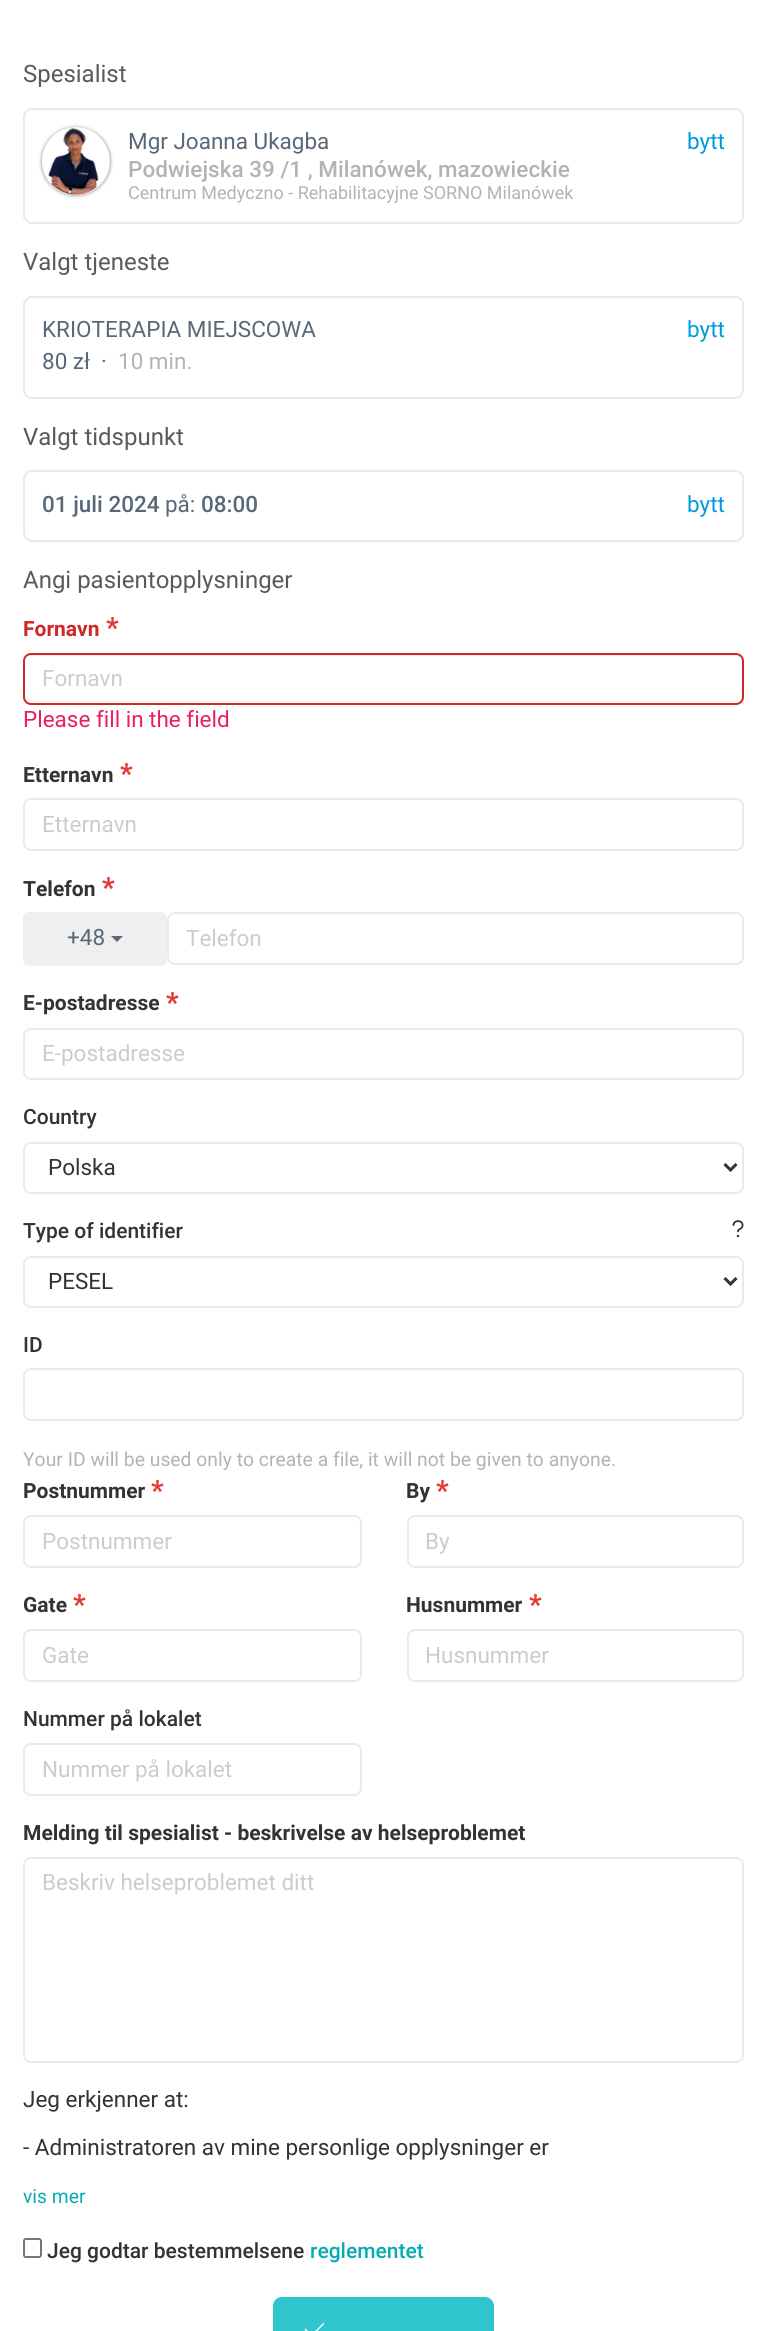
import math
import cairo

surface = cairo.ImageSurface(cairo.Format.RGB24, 766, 2331)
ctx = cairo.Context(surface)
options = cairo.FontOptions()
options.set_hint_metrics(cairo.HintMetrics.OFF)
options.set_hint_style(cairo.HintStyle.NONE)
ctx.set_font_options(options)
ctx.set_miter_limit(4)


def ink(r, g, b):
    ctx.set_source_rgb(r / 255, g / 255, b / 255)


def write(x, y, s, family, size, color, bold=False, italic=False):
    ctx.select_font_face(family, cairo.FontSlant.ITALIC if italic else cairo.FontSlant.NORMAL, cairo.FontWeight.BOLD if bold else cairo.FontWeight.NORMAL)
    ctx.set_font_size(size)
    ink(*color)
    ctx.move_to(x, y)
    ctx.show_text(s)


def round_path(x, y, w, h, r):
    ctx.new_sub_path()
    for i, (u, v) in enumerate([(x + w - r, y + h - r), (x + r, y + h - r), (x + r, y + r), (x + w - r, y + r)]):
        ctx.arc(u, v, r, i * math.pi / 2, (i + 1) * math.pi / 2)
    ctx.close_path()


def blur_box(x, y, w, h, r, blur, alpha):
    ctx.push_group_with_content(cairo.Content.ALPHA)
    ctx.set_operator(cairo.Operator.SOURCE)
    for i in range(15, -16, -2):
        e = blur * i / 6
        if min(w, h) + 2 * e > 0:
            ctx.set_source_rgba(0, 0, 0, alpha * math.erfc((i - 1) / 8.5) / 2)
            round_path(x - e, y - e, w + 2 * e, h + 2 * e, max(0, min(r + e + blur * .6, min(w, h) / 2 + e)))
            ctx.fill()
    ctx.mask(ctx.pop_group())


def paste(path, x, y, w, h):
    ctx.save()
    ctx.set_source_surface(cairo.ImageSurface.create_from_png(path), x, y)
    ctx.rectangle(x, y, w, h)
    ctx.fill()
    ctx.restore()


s1 = dict(family="Roboto", size=24, color=(90, 90, 90))
s2 = dict(family="Roboto", size=22.5, color=(89, 104, 119))
s3 = dict(family="Roboto", size=22.5, color=(0, 154, 224))
s4 = dict(family="Roboto Medium", size=22.5, color=(179, 179, 179))
s5 = dict(family="Roboto", size=18, color=(179, 179, 179))
s6 = dict(family="Roboto", size=22.5, color=(179, 179, 179))
s7 = dict(family="Roboto Medium", size=22.5, color=(89, 104, 119))
s8 = dict(family="Roboto", size=21, color=(207, 41, 39), bold=True)
s9 = dict(family="Roboto", size=28, color=(229, 57, 53), bold=True)
s10 = dict(family="Roboto", size=22.5, color=(204, 204, 204))
s11 = dict(family="Roboto", size=22.5, color=(233, 30, 99))
s12 = dict(family="Roboto", size=21, color=(51, 51, 51), bold=True)
s13 = dict(family="Roboto Medium", size=21, color=(51, 51, 51))
s14 = dict(family="Roboto", size=22.5, color=(51, 51, 51))
s15 = dict(family="Roboto", size=19.35, color=(179, 179, 179))
s16 = dict(family="Roboto", size=19.35, color=(6, 171, 179))
s17 = dict(family="Roboto Medium", size=21, color=(6, 171, 179))

ink(255, 255, 255)
ctx.paint()
write(23, 82, "Spesialist", **s1)
round_path(24, 109, 719, 114, 8)
ink(233, 233, 233)
ctx.stroke()
ink(0, 0, 0)
blur_box(42, 128, 68, 67, 33.5, 2, 0.5)
ink(238, 238, 238)
round_path(42, 128, 68, 67, 33.5)
ctx.fill()
paste("pic1.png", 42, 127, 68, 68)
write(128, 149, "Mgr Joanna Ukagba", **s2)
write(687, 149, "bytt", **s3)
write(128, 177, "Podwiejska 39 /1 , Milanówek, mazowieckie", **s4)
write(128, 199, "Centrum Medyczno - Rehabilitacyjne SORNO Milanówek", **s5)
write(23, 270, "Valgt tjeneste", **s1)
round_path(24, 297, 719, 101, 8)
ink(233, 233, 233)
ctx.stroke()
write(42, 337, "KRIOTERAPIA MIEJSCOWA", **s2)
write(687, 337, "bytt", **s3)
write(42, 369, "80 zł", **s2)
write(101, 369, "·", **s2)
write(118, 369, "10 min.", **s6)
write(23, 445, "Valgt tidspunkt", **s1)
round_path(24, 471, 719, 70, 8)
ink(233, 233, 233)
ctx.stroke()
write(42, 512, "01 juli 2024", **s7)
write(165, 512, "på:", **s2)
write(201, 512, "08:00", **s7)
write(687, 512, "bytt", **s3)
write(23, 588, "Angi pasientopplysninger", **s1)
write(23, 636, "Fornavn", **s8)
write(106, 637, "*", **s9)
ink(236, 236, 236)
ctx.new_path()
ctx.move_to(30, 656)
ctx.line_to(736, 656)
ctx.curve_to(740, 656, 742, 658, 742, 662)
ctx.line_to(742, 699)
ctx.curve_to(742, 700, 742, 701, 741, 702)
ctx.line_to(743, 699)
ctx.line_to(743, 659)
ctx.line_to(742, 657)
ctx.curve_to(741, 655, 740, 654, 738, 654)
ctx.line_to(29, 654)
ctx.curve_to(25, 655, 24, 659, 24, 662)
ctx.curve_to(24, 658, 27, 656, 30, 656)
ctx.close_path()
ctx.fill()
round_path(24, 654, 719, 50, 7)
ink(207, 41, 39)
ctx.stroke()
write(42, 686, "Fornavn", **s10)
write(23, 727, "Please fill in the field", **s11)
write(23, 782, "Etternavn", **s12)
write(120, 783, "*", **s9)
round_path(24, 799, 719, 51, 7)
ink(231, 235, 239)
ctx.stroke()
write(42, 832, "Etternavn", **s10)
write(23, 896, "Telefon", **s12)
write(102, 897, "*", **s9)
ink(239, 239, 239)
round_path(23, 912, 144, 54, 6)
ctx.fill()
write(67, 945, "+48", **s2)
ctx.new_path()
ctx.move_to(111, 936)
ctx.line_to(123, 936)
ctx.line_to(117, 942)
ctx.close_path()
ctx.fill()
round_path(168, 913, 575, 51, 7)
ink(231, 235, 239)
ctx.stroke()
write(186, 946, "Telefon", **s10)
write(23, 1010, "E-postadresse", **s12)
write(166, 1012, "*", **s9)
round_path(24, 1029, 719, 50, 7)
ink(231, 235, 239)
ctx.stroke()
write(42, 1061, "E-postadresse", **s10)
write(23, 1124, "Country", **s13)
round_path(24, 1143, 719, 50, 7)
ink(231, 235, 239)
ctx.stroke()
ctx.new_path()
ctx.move_to(724.5, 1164)
ctx.line_to(730.5, 1170)
ctx.line_to(736.5, 1164)
ink(51, 51, 51)
ctx.set_line_width(3)
ctx.stroke()
write(48, 1175, "Polska", **s14)
write(23, 1238, "Type of identifier", **s13)
paste("pic2.png", 732, 1220, 12, 18)
round_path(24, 1257, 719, 50, 7)
ink(231, 235, 239)
ctx.set_line_width(2)
ctx.stroke()
ctx.new_path()
ctx.move_to(724.5, 1278)
ctx.line_to(730.5, 1284)
ctx.line_to(736.5, 1278)
ink(51, 51, 51)
ctx.set_line_width(3)
ctx.stroke()
write(48, 1289, "PESEL", **s14)
write(23, 1352, "ID", **s13)
round_path(24, 1369, 719, 51, 7)
ink(231, 235, 239)
ctx.set_line_width(2)
ctx.stroke()
write(23, 1466, "Your ID will be used only to create a file, it will not be given to anyone.", **s15)
write(23, 1498, "Postnummer", **s12)
write(151, 1500, "*", **s9)
round_path(24, 1516, 337, 51, 7)
ink(231, 235, 239)
ctx.stroke()
write(42, 1549, "Postnummer", **s10)
write(406, 1498, "By", **s12)
write(436, 1500, "*", **s9)
round_path(408, 1516, 335, 51, 7)
ink(231, 235, 239)
ctx.stroke()
write(425, 1549, "By", **s10)
write(23, 1612, "Gate", **s12)
write(73, 1614, "*", **s9)
round_path(24, 1630, 337, 51, 7)
ink(231, 235, 239)
ctx.stroke()
write(42, 1663, "Gate", **s10)
write(406, 1612, "Husnummer", **s12)
write(529, 1614, "*", **s9)
round_path(408, 1630, 335, 51, 7)
ink(231, 235, 239)
ctx.stroke()
write(425, 1663, "Husnummer", **s10)
write(23, 1726, "Nummer på lokalet", **s13)
round_path(24, 1744, 337, 51, 7)
ink(231, 235, 239)
ctx.stroke()
write(42, 1777, "Nummer på lokalet", **s10)
write(23, 1840, "Melding til spesialist - beskrivelse av helseproblemet", **s12)
round_path(24, 1858, 719, 204, 7)
ink(231, 235, 239)
ctx.stroke()
write(42, 1890, "Beskriv helseproblemet ditt", **s10)
write(23, 2107, "Jeg erkjenner at:", **s14)
write(23, 2155, "- Administratoren av mine personlige opplysninger er", **s14)
write(23, 2203, "vis mer", **s16)
round_path(24, 2239, 17, 18, 2)
ink(118, 118, 118)
ctx.stroke()
write(47, 2258, "Jeg godtar bestemmelsene", **s13)
write(310, 2258, "reglementet", **s17)
ink(46, 197, 204)
round_path(273, 2297, 221, 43, 9)
ctx.fill()
paste("pic3.png", 304, 2323, 21, 8)
surface.write_to_png("screenshot.png")
